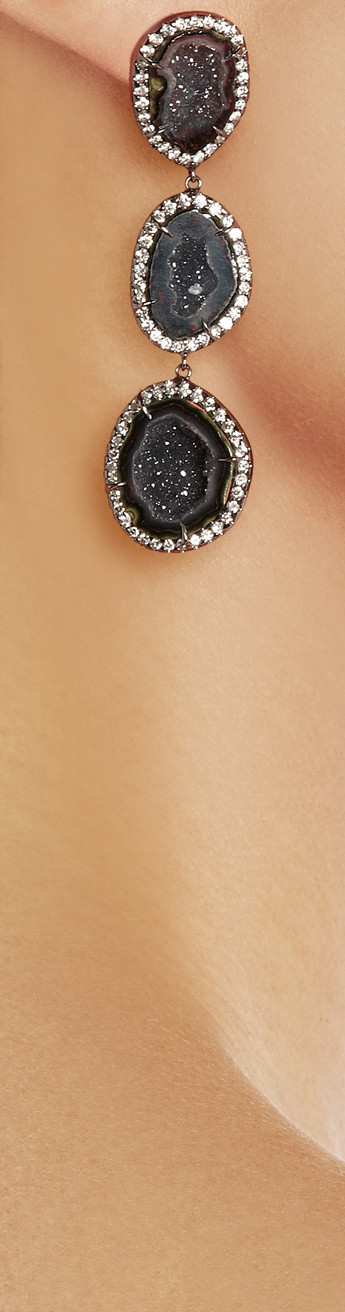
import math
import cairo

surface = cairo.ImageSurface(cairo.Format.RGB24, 345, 1312)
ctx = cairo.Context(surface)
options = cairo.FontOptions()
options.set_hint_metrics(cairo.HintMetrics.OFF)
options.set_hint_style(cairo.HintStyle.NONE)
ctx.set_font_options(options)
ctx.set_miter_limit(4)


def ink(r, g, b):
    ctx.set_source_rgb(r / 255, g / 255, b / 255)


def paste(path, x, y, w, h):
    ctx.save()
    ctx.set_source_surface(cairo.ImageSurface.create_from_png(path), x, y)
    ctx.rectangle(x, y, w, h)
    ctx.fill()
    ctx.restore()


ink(255, 255, 255)
ctx.paint()
paste("pic1.png", 0, 0, 345, 1312)
surface.write_to_png("screenshot.png")
